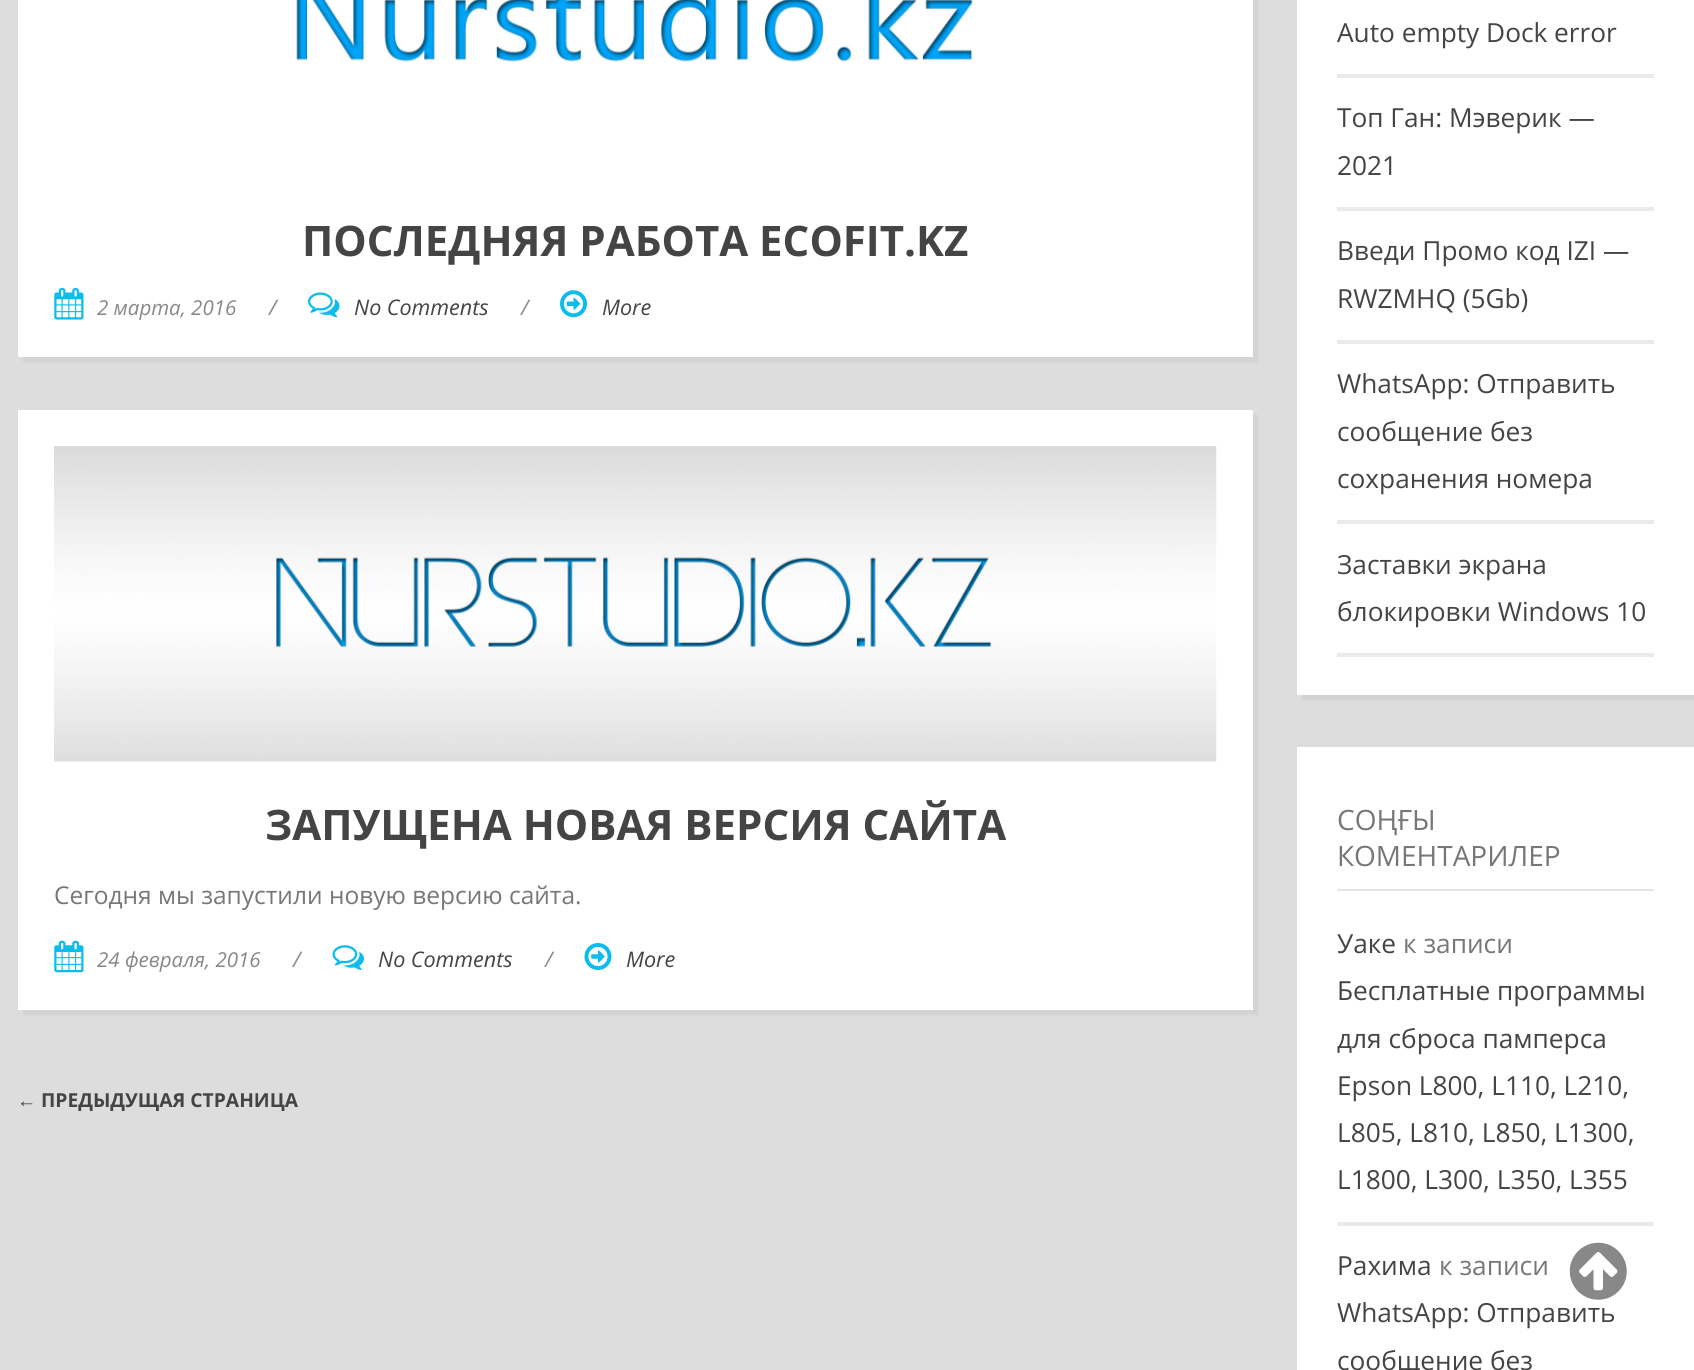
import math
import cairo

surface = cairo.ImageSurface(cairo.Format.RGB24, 1694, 1370)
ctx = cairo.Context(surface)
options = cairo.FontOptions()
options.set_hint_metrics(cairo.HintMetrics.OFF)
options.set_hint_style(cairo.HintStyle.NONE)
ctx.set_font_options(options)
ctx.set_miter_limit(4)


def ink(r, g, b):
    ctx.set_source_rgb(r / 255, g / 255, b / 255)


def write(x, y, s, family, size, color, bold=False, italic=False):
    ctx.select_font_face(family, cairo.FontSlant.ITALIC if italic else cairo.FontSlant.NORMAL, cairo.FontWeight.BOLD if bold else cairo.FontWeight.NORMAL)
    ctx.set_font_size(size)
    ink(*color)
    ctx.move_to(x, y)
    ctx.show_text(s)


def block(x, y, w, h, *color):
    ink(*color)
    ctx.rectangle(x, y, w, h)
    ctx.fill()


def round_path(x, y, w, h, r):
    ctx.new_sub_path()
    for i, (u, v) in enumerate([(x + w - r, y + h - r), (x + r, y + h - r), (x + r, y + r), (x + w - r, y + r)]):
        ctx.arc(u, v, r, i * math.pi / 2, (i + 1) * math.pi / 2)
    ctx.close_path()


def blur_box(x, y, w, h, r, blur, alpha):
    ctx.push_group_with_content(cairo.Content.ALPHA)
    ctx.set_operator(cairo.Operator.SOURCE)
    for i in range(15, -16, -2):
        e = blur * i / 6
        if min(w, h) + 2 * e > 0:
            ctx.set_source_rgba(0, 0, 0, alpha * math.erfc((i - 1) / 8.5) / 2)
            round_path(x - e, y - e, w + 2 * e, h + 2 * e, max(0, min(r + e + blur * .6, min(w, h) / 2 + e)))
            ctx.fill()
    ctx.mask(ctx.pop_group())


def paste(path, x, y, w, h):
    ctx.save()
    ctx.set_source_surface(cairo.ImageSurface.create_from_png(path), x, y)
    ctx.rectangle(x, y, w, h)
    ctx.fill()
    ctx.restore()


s1 = dict(family="Open Sans", size=42, color=(68, 68, 68), bold=True)
s2 = dict(family="Open Sans", size=20.5, color=(136, 136, 136), italic=True)
s3 = dict(family="Open Sans", size=21.5, color=(136, 136, 136), italic=True)
s4 = dict(family="Open Sans", size=21.5, color=(68, 68, 68), italic=True)
s5 = dict(family="Open Sans", size=24.5, color=(119, 119, 119))
s6 = dict(family="Liberation Serif", size=19.25, color=(68, 68, 68), bold=True)
s7 = dict(family="Open Sans", size=19.25, color=(68, 68, 68), bold=True)
s8 = dict(family="Open Sans", size=26.25, color=(68, 68, 68))
s9 = dict(family="Open Sans", size=28, color=(119, 119, 119))
s10 = dict(family="Open Sans", size=26.25, color=(119, 119, 119))

ink(221, 221, 221)
ctx.paint()
ink(0, 0, 0)
blur_box(23, -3, 1235, 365, 0, 1, 0.05)
block(18, 0, 1235, 357, 255, 255, 255)
paste("pic1.png", 296, 0, 677, 62)
write(302, 256, "ПОСЛЕДНЯЯ РАБОТА ECOFIT.KZ", **s1)
paste("pic2.png", 54, 288, 30, 32)
write(97, 315, "2 марта, 2016", **s2)
write(269, 315, "/", **s3)
paste("pic3.png", 308, 292, 32, 26)
write(354, 315, "No Comments", **s4)
write(521, 315, "/", **s3)
paste("pic4.png", 560, 290, 27, 28)
write(602, 315, "More", **s4)
ink(0, 0, 0)
blur_box(23, 415, 1235, 600, 0, 1, 0.05)
block(18, 410, 1235, 600, 255, 255, 255)
paste("pic5.png", 54, 446, 1163, 316)
write(265, 840, "ЗАПУЩЕНА НОВАЯ ВЕРСИЯ САЙТА", **s1)
write(54, 904, "Сегодня мы запустили новую версию сайта.", **s5)
paste("pic6.png", 54, 940, 30, 33)
write(97, 967, "24 февраля, 2016", **s2)
write(293, 967, "/", **s3)
paste("pic7.png", 332, 945, 32, 25)
write(378, 967, "No Comments", **s4)
write(545, 967, "/", **s3)
paste("pic8.png", 584, 943, 28, 27)
write(626, 967, "More", **s4)
write(17, 1107, "←", **s6)
write(41, 1107, "ПРЕДЫДУЩАЯ СТРАНИЦА", **s7)
ink(0, 0, 0)
blur_box(1302, -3, 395, 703, 0, 1, 0.05)
block(1297, 0, 397, 695, 255, 255, 255)
block(1337, 74, 317, 4, 234, 234, 234)
write(1337, 42, "Auto empty Dock error", **s8)
block(1337, 207, 317, 4, 234, 234, 234)
write(1337, 127, "Топ Ган: Мэверик —", **s8)
write(1337, 175, "2021", **s8)
block(1337, 340, 317, 4, 234, 234, 234)
write(1337, 260, "Введи Промо код IZI —", **s8)
write(1337, 308, "RWZMHQ (5Gb)", **s8)
block(1337, 520, 317, 4, 234, 234, 234)
write(1337, 393, "WhatsApp: Отправить", **s8)
write(1337, 441, "сообщение без", **s8)
write(1337, 488, "сохранения номера", **s8)
block(1337, 653, 317, 4, 234, 234, 234)
write(1337, 574, "Заставки экрана", **s8)
write(1337, 621, "блокировки Windows 10", **s8)
block(1297, 747, 397, 623, 255, 255, 255)
ink(230, 230, 230)
ctx.new_path()
ctx.move_to(1337, 889)
ctx.line_to(1337, 891)
ctx.line_to(1654, 891)
ctx.line_to(1654, 789)
ctx.line_to(1654, 889)
ctx.close_path()
ctx.fill()
write(1337, 830, "СОҢҒЫ", **s9)
write(1337, 866, "КОМЕНТАРИЛЕР", **s9)
block(1337, 1222, 317, 4, 234, 234, 234)
write(1337, 953, "Уаке", **s8)
write(1403, 953, "к записи", **s10)
write(1337, 1000, "Бесплатные программы", **s8)
write(1337, 1048, "для сброса памперса", **s8)
write(1337, 1095, "Epson L800, L110, L210,", **s8)
write(1337, 1142, "L805, L810, L850, L1300,", **s8)
write(1337, 1189, "L1800, L300, L350, L355", **s8)
write(1337, 1275, "Рахима", **s8)
write(1439, 1275, "к записи", **s10)
write(1337, 1322, "WhatsApp: Отправить", **s8)
write(1337, 1370, "сообщение без", **s8)
paste("pic9.png", 1569, 1242, 58, 58)
surface.write_to_png("screenshot.png")
